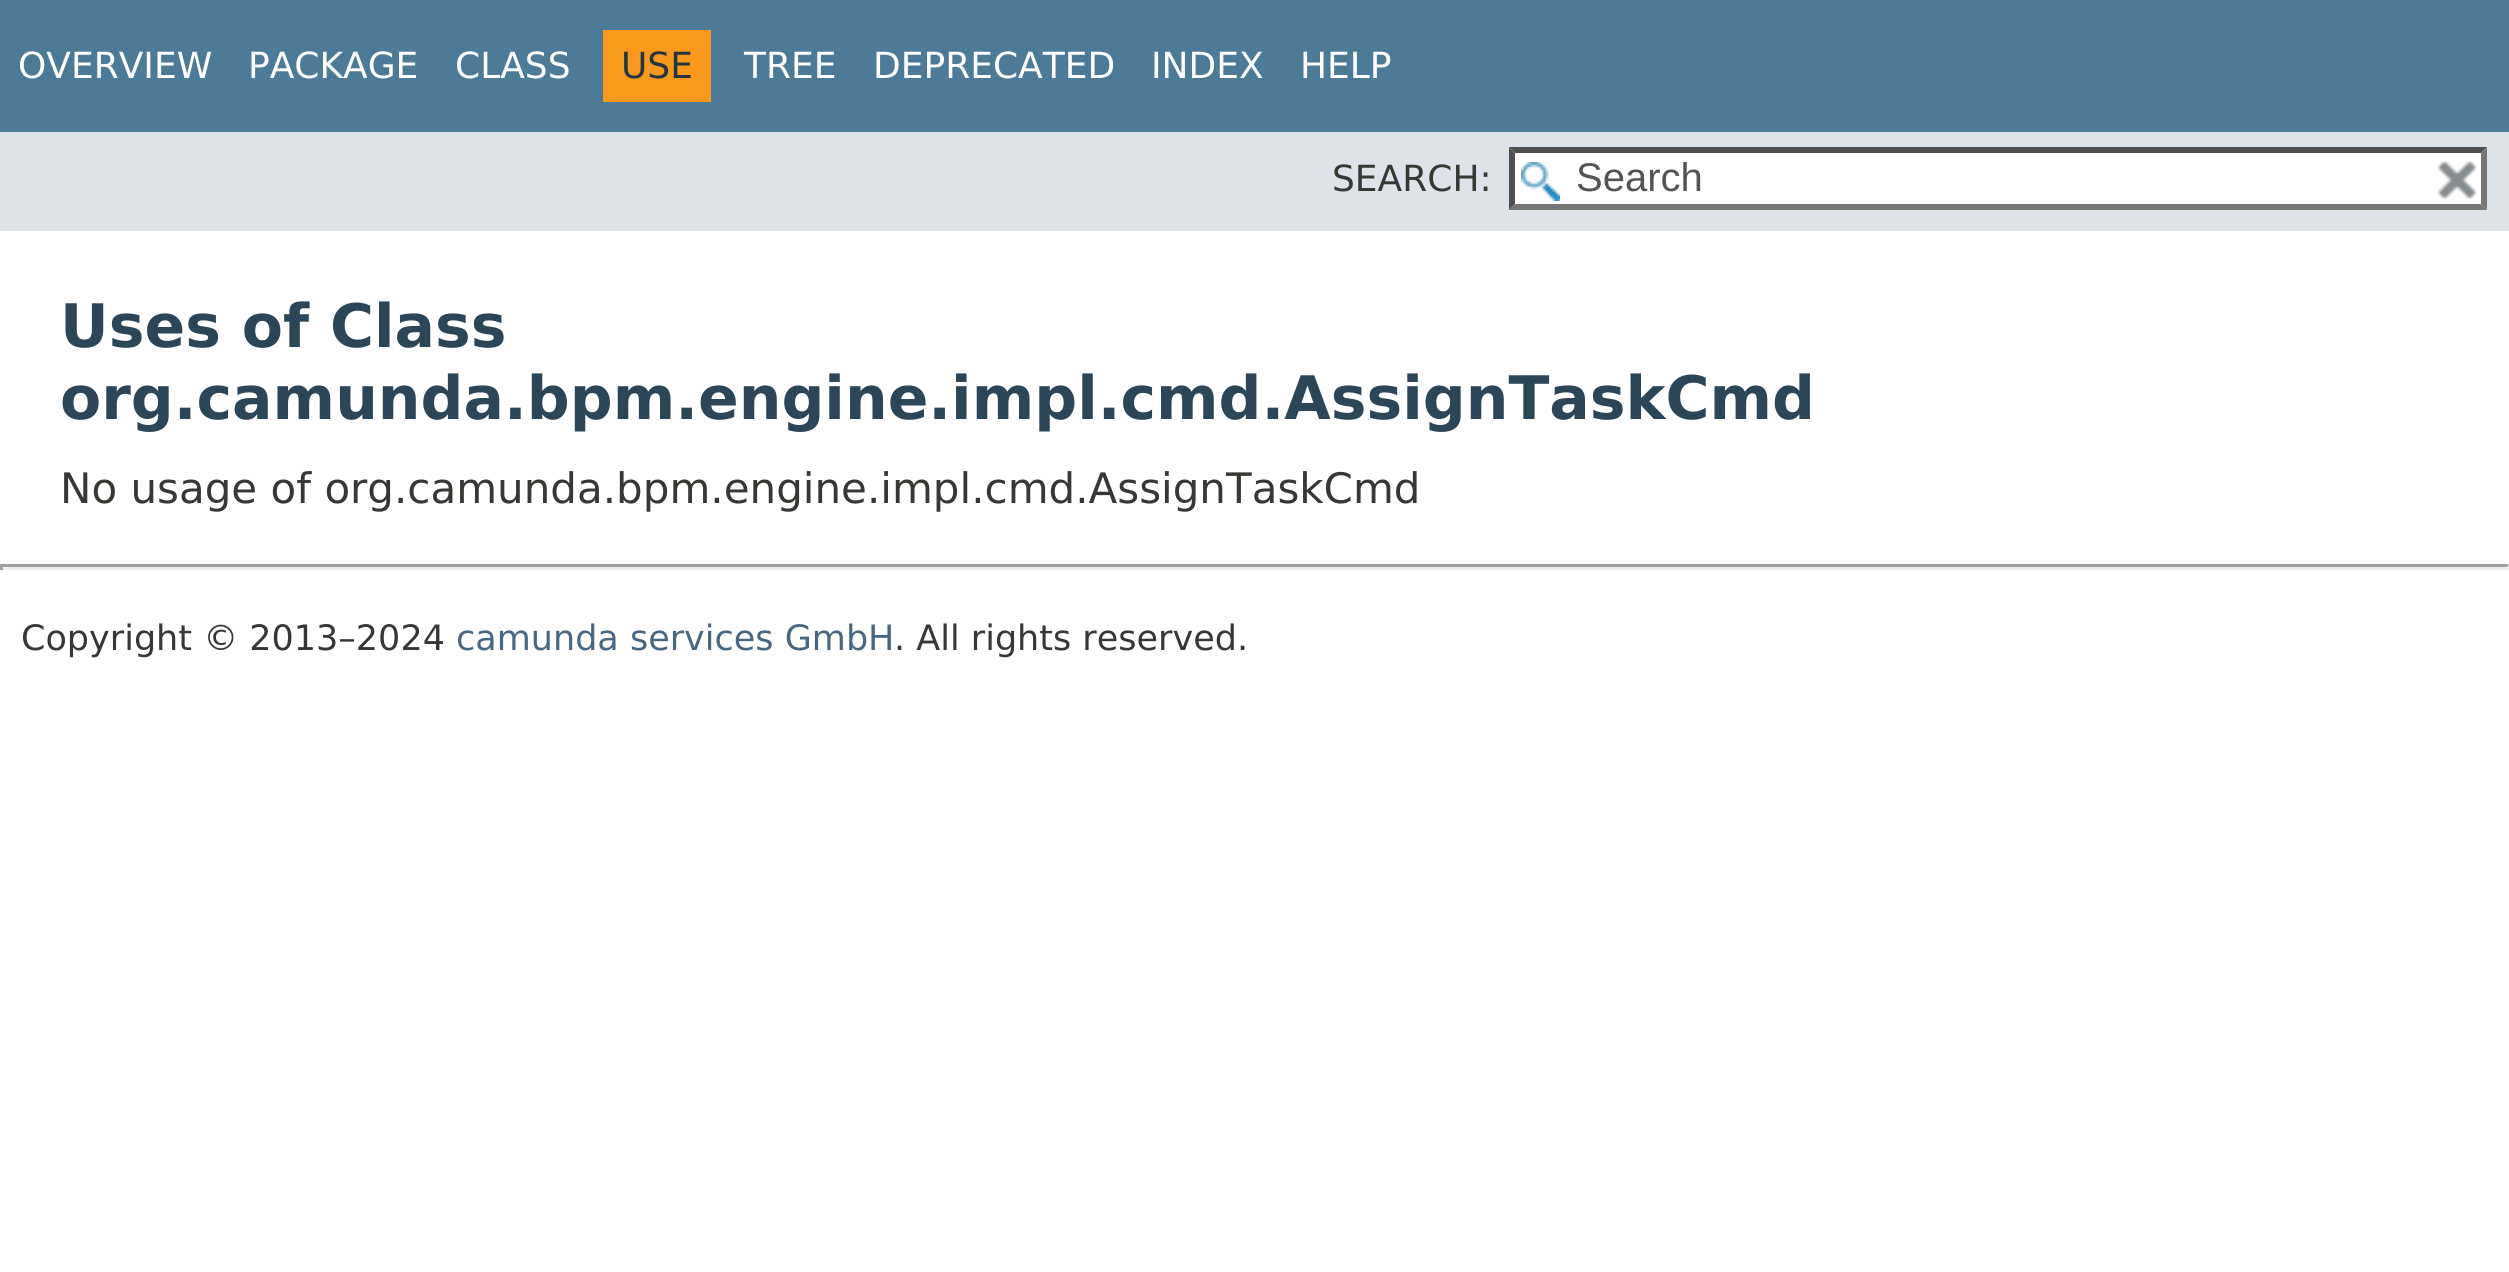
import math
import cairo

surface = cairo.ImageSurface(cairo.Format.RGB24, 2509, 1272)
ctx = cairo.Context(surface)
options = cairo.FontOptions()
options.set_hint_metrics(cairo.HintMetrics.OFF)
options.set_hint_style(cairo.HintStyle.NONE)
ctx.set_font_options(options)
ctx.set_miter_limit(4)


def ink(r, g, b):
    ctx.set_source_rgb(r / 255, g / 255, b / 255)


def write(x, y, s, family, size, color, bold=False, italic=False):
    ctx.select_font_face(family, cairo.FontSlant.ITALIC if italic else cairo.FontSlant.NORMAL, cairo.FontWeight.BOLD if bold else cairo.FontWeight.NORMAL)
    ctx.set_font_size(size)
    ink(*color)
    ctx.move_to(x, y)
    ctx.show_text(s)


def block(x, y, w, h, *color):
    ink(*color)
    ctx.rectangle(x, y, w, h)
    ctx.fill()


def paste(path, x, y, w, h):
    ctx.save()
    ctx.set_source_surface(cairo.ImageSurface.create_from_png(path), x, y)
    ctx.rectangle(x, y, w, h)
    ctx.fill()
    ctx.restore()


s1 = dict(family="DejaVu Sans", size=36, color=(255, 255, 255))
s2 = dict(family="DejaVu Sans", size=36, color=(37, 52, 65))
s3 = dict(family="DejaVu Sans", size=36, color=(53, 56, 51))
s4 = dict(family="Liberation Sans", size=40, color=(84, 84, 84))
s5 = dict(family="DejaVu Sans", size=60, color=(44, 69, 87), bold=True)
s6 = dict(family="DejaVu Sans", size=42, color=(53, 56, 51))
s7 = dict(family="DejaVu Sans", size=35, color=(53, 56, 51))
s8 = dict(family="DejaVu Sans", size=35, color=(74, 103, 130))

ink(255, 255, 255)
ctx.paint()
block(0, 0, 2509, 132, 77, 122, 151)
write(18, 78, "OVERVIEW", **s1)
write(248, 78, "PACKAGE", **s1)
write(455, 78, "CLASS", **s1)
block(603, 30, 108, 72, 248, 152, 29)
write(621, 78, "USE", **s2)
write(744, 78, "TREE", **s1)
write(873, 78, "DEPRECATED", **s1)
write(1151, 78, "INDEX", **s1)
write(1300, 78, "HELP", **s1)
block(0, 132, 2509, 99, 222, 227, 233)
write(1332, 191, "SEARCH:", **s3)
block(1509, 147, 978, 63, 255, 255, 255)
paste("pic1.png", 1521, 162, 39, 39)
ink(79, 79, 79)
ctx.new_path()
ctx.move_to(1509, 147)
ctx.line_to(2487, 147)
ctx.line_to(2481, 153)
ctx.line_to(1515, 153)
ctx.close_path()
ctx.fill()
ink(118, 118, 118)
ctx.new_path()
ctx.move_to(2487, 147)
ctx.line_to(2487, 210)
ctx.line_to(2481, 204)
ctx.line_to(2481, 153)
ctx.close_path()
ctx.fill()
ctx.new_path()
ctx.move_to(2487, 210)
ctx.line_to(1509, 210)
ctx.line_to(1515, 204)
ctx.line_to(2481, 204)
ctx.close_path()
ctx.fill()
ink(79, 79, 79)
ctx.new_path()
ctx.move_to(1509, 210)
ctx.line_to(1509, 147)
ctx.line_to(1515, 153)
ctx.line_to(1515, 204)
ctx.close_path()
ctx.fill()
write(1576, 191, "Search", **s4)
paste("pic2.png", 2437, 161, 40, 38)
write(60, 347, "Uses of Class", **s5)
write(60, 419, "org.camunda.bpm.engine.impl.cmd.AssignTaskCmd", **s5)
write(60, 503, "No usage of org.camunda.bpm.engine.impl.cmd.AssignTaskCmd", **s6)
block(0, 564, 2509, 3, 159, 159, 159)
block(2508, 564, 1, 6, 238, 238, 238)
block(0, 567, 2509, 3, 238, 238, 238)
block(0, 564, 3, 6, 159, 159, 159)
write(21, 650, "Copyright © 2013–2024", **s7)
write(456, 650, "camunda services GmbH", **s8)
write(894, 650, ". All rights reserved.", **s7)
surface.write_to_png("screenshot.png")
